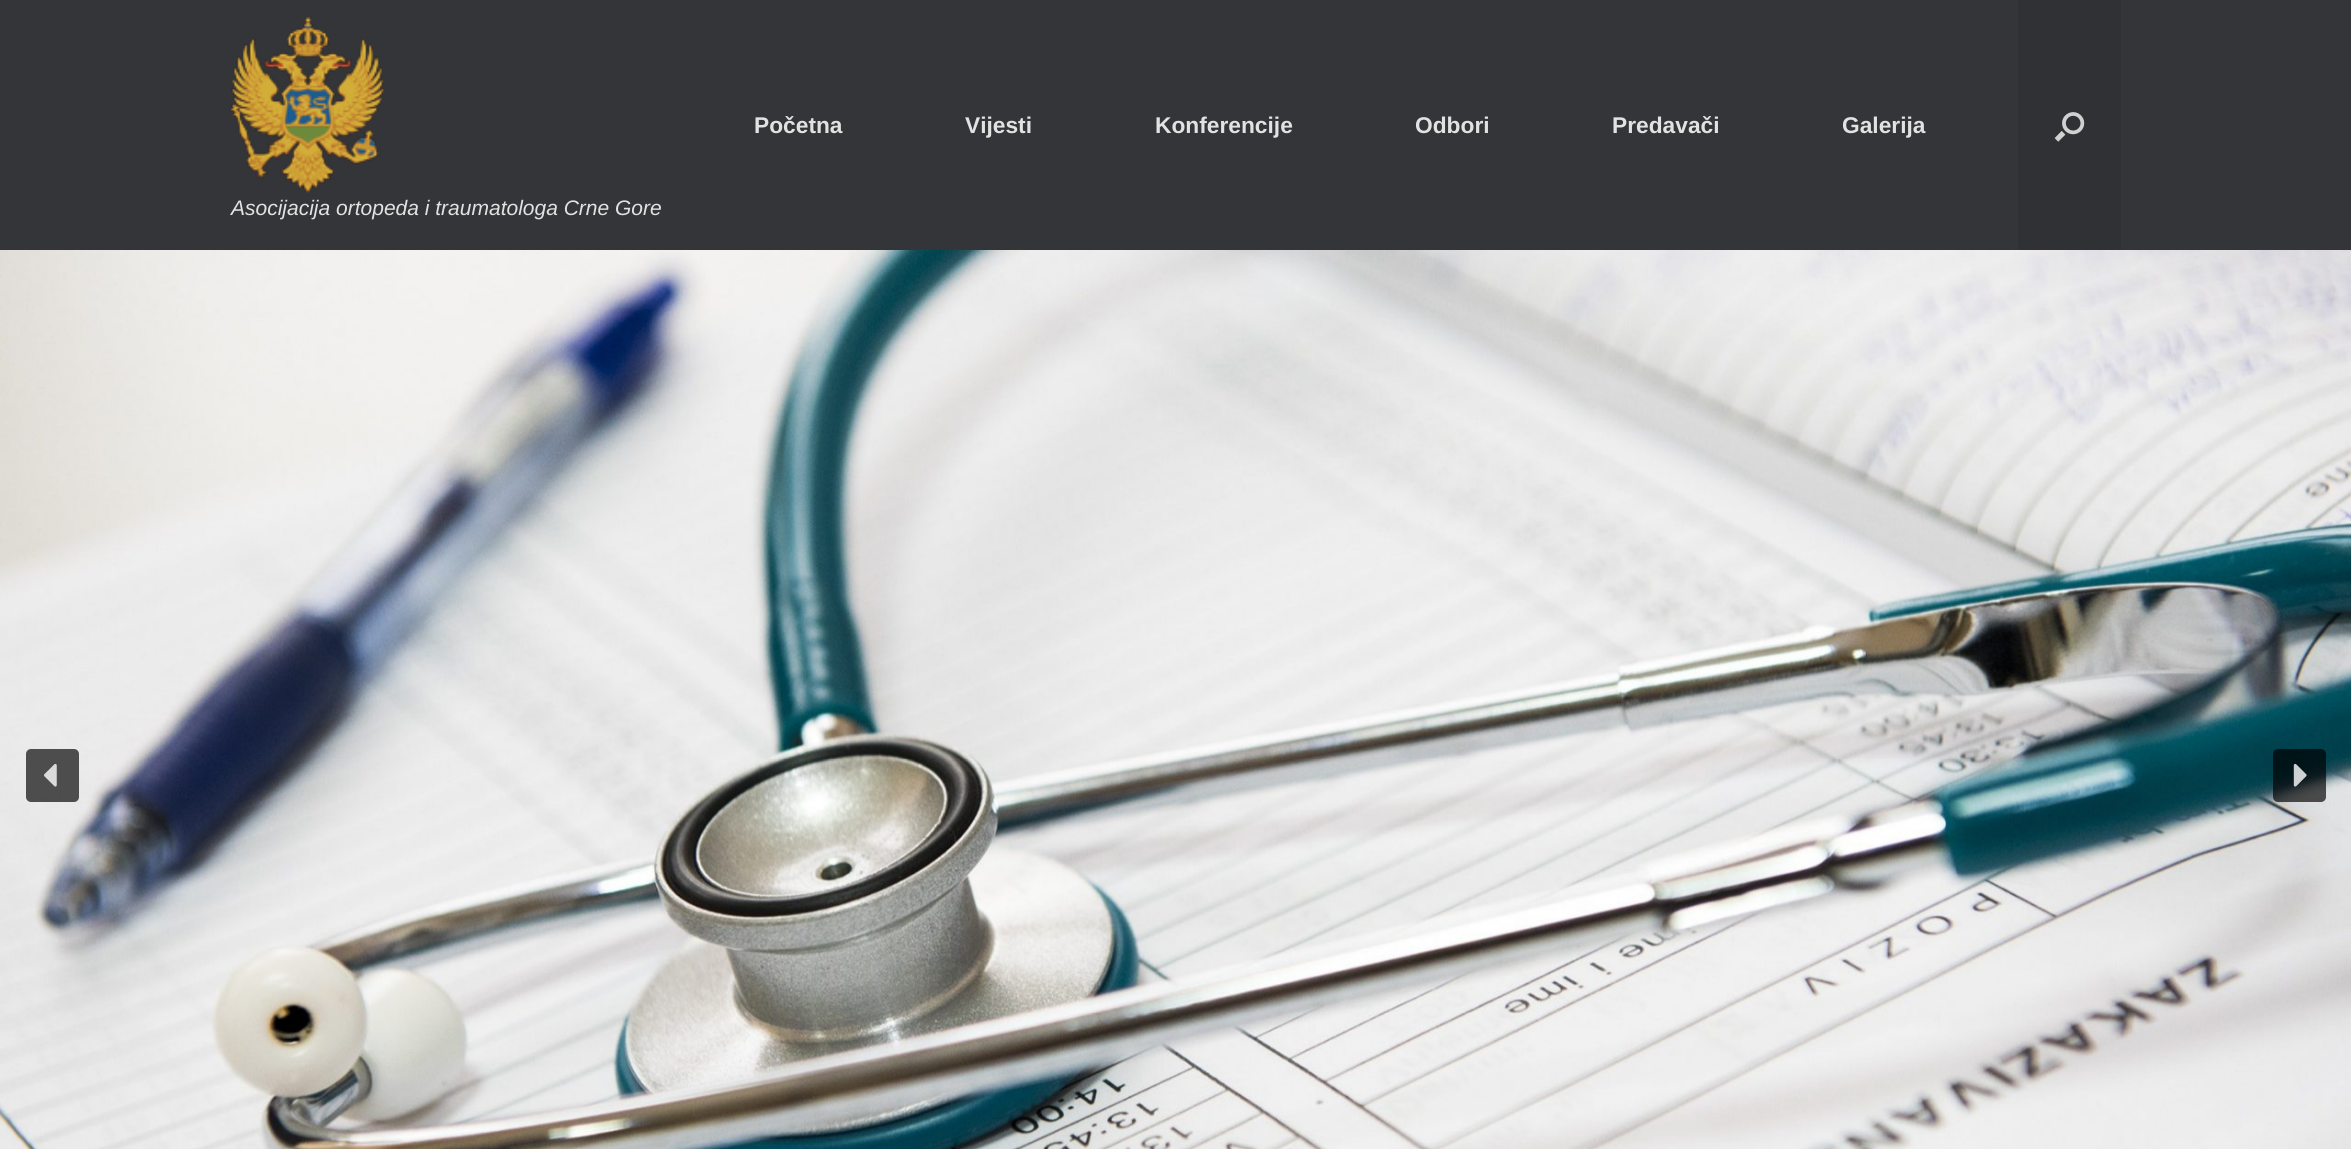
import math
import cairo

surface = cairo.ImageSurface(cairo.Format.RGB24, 2351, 1149)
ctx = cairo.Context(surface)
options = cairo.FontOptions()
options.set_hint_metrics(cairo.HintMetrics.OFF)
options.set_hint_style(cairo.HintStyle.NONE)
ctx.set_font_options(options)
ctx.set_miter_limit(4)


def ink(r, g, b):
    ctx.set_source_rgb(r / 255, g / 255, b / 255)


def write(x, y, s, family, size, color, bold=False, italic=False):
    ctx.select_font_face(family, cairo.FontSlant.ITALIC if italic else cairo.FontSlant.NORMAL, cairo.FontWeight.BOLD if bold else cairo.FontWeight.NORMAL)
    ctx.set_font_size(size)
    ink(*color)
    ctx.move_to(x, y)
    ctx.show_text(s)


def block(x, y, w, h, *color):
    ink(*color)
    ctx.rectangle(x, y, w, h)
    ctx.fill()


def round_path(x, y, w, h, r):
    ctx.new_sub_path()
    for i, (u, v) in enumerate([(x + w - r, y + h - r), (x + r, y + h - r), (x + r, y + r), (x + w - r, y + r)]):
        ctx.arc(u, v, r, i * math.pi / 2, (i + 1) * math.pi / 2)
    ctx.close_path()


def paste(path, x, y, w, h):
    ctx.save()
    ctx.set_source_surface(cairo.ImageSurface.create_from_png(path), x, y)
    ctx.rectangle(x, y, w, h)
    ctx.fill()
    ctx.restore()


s1 = dict(family="Liberation Sans", size=22.75, color=(226, 226, 226), bold=True)
s2 = dict(family="Liberation Sans", size=21, color=(226, 226, 226), italic=True)

ink(255, 255, 255)
ctx.paint()
block(0, 0, 2351, 250, 52, 53, 56)
write(754, 133, "Početna", **s1)
write(965, 133, "Vijesti", **s1)
write(1155, 133, "Konferencije", **s1)
write(1415, 133, "Odbori", **s1)
write(1612, 133, "Predavači", **s1)
write(1842, 133, "Galerija", **s1)
block(2018, 0, 103, 250, 48, 49, 52)
paste("pic1.png", 2054, 112, 31, 30)
paste("pic2.png", 231, 17, 153, 176)
write(231, 215, "Asocijacija ortopeda i traumatologa Crne Gore", **s2)
paste("pic3.png", 0, 250, 2351, 899)
ctx.set_source_rgba(0, 0, 0, 0.67)
round_path(26, 749, 53, 53, 5)
ctx.fill()
paste("pic4.png", 44, 763, 13, 24)
round_path(2273, 749, 53, 53, 5)
ctx.fill()
paste("pic5.png", 2293, 763, 14, 24)
surface.write_to_png("screenshot.png")
